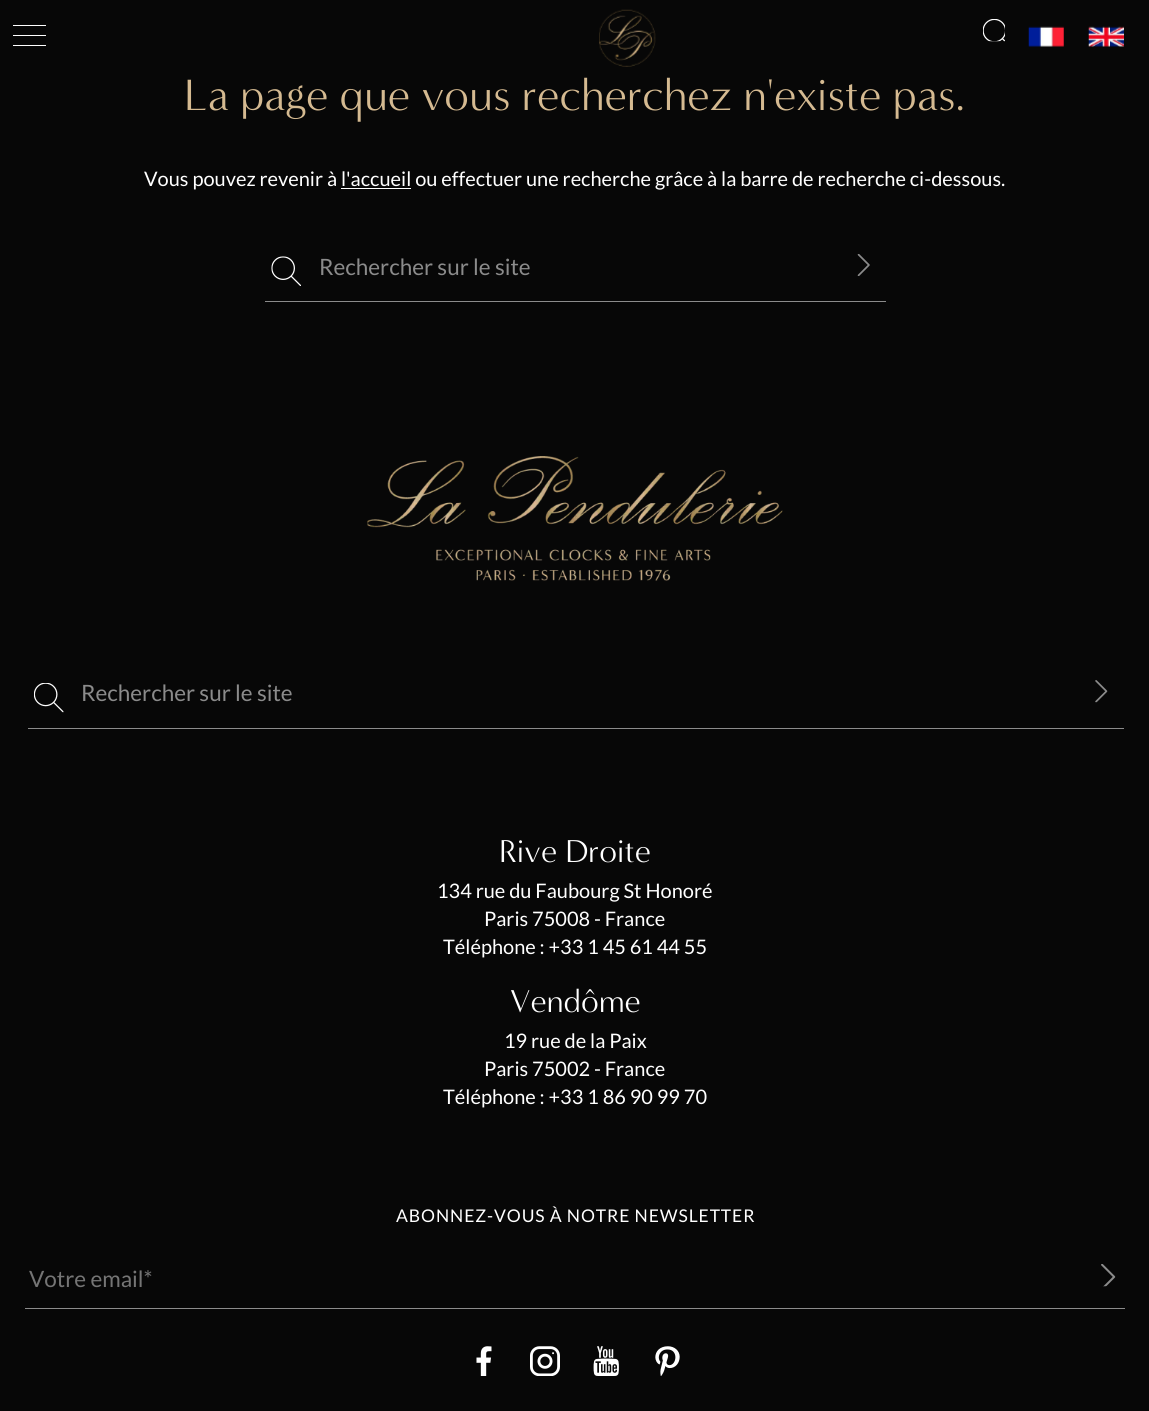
import math
import cairo

surface = cairo.ImageSurface(cairo.Format.RGB24, 1149, 1411)
ctx = cairo.Context(surface)
options = cairo.FontOptions()
options.set_hint_metrics(cairo.HintMetrics.OFF)
options.set_hint_style(cairo.HintStyle.NONE)
ctx.set_font_options(options)
ctx.set_miter_limit(4)


def ink(r, g, b):
    ctx.set_source_rgb(r / 255, g / 255, b / 255)


def write(x, y, s, family, size, color, bold=False, italic=False):
    ctx.select_font_face(family, cairo.FontSlant.ITALIC if italic else cairo.FontSlant.NORMAL, cairo.FontWeight.BOLD if bold else cairo.FontWeight.NORMAL)
    ctx.set_font_size(size)
    ink(*color)
    ctx.move_to(x, y)
    ctx.show_text(s)


def write_spaced(x, y, s, letter, word):
    ctx.move_to(x, y)
    for ch in s:
        ctx.show_text(ch)
        ctx.rel_move_to(letter + word * (ch == ' '), 0)


def block(x, y, w, h, *color):
    ink(*color)
    ctx.rectangle(x, y, w, h)
    ctx.fill()


def paste(path, x, y, w, h):
    ctx.save()
    ctx.set_source_surface(cairo.ImageSurface.create_from_png(path), x, y)
    ctx.rectangle(x, y, w, h)
    ctx.fill()
    ctx.restore()


s1 = dict(family="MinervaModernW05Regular", size=45, color=(213, 186, 145))
s2 = dict(family="Lato", size=20, color=(255, 255, 255))
s3 = dict(family="Lato", size=22.5, color=(139, 139, 139))
s4 = dict(family="MinervaModernW05Regular", size=32.5, color=(255, 255, 255))
s5 = dict(family="Lato", size=22.5, color=(117, 117, 117))

ink(7, 7, 7)
ctx.paint()
ctx.save()
ctx.rectangle(13, 25, 33, 21)
ctx.clip()
ink(255, 255, 255)
ctx.new_path()
ctx.move_to(12.5, 25)
ctx.line_to(46, 25)
ctx.line_to(46, 26)
ctx.line_to(12.5, 26)
ctx.close_path()
ctx.move_to(12.5, 35)
ctx.line_to(46, 35)
ctx.line_to(46, 36)
ctx.line_to(12.5, 36)
ctx.close_path()
ctx.move_to(12.5, 45)
ctx.line_to(46, 45)
ctx.line_to(46, 46)
ctx.line_to(12.5, 46)
ctx.close_path()
ctx.fill()
ctx.restore()
paste("pic1.png", 599, 9, 57, 58)
paste("pic2.png", 983, 19, 22, 23)
paste("pic3.png", 1028, 26, 36, 21)
paste("pic4.png", 1088, 26, 36, 21)
write(184, 110, "La page que vous recherchez n'existe pas.", **s1)
write(144, 186, "Vous pouvez revenir à l'accueil ou effectuer une recherche grâce à la barre de recherche ci-dessous.", **s2)
block(341, 188, 70, 1, 255, 255, 255)
paste("pic5.png", 271, 256, 30, 30)
block(265, 301, 621, 1, 139, 139, 139)
write(319, 275, "Rechercher sur le site", **s3)
paste("pic6.png", 857, 254, 13, 22)
paste("pic7.png", 367, 456, 416, 125)
paste("pic8.png", 34, 683, 30, 30)
block(28, 728, 1096, 1, 139, 139, 139)
write(81, 701, "Rechercher sur le site", **s3)
paste("pic9.png", 1095, 680, 13, 23)
write(499, 862, "Rive Droite", **s4)
write(437, 898, "134 rue du Faubourg St Honoré", **s2)
write(484, 926, "Paris 75008 - France", **s2)
write(443, 954, "Téléphone : +33 1 45 61 44 55", **s2)
write(510, 1012, "Vendôme", **s4)
write(504, 1048, "19 rue de la Paix", **s2)
write(484, 1076, "Paris 75002 - France", **s2)
write(443, 1104, "Téléphone : +33 1 86 90 99 70", **s2)
ctx.set_font_size(17.5)
write_spaced(396, 1222, "ABONNEZ-VOUS À NOTRE NEWSLETTER", 0.9, 0)
block(25, 1308, 1100, 1, 139, 139, 139)
write(29, 1287, "Votre email*", **s5)
paste("pic10.png", 1101, 1264, 15, 23)
paste("pic11.png", 476, 1346, 16, 30)
paste("pic12.png", 530, 1346, 30, 30)
paste("pic13.png", 593, 1346, 26, 30)
paste("pic14.png", 655, 1346, 25, 30)
surface.write_to_png("screenshot.png")
